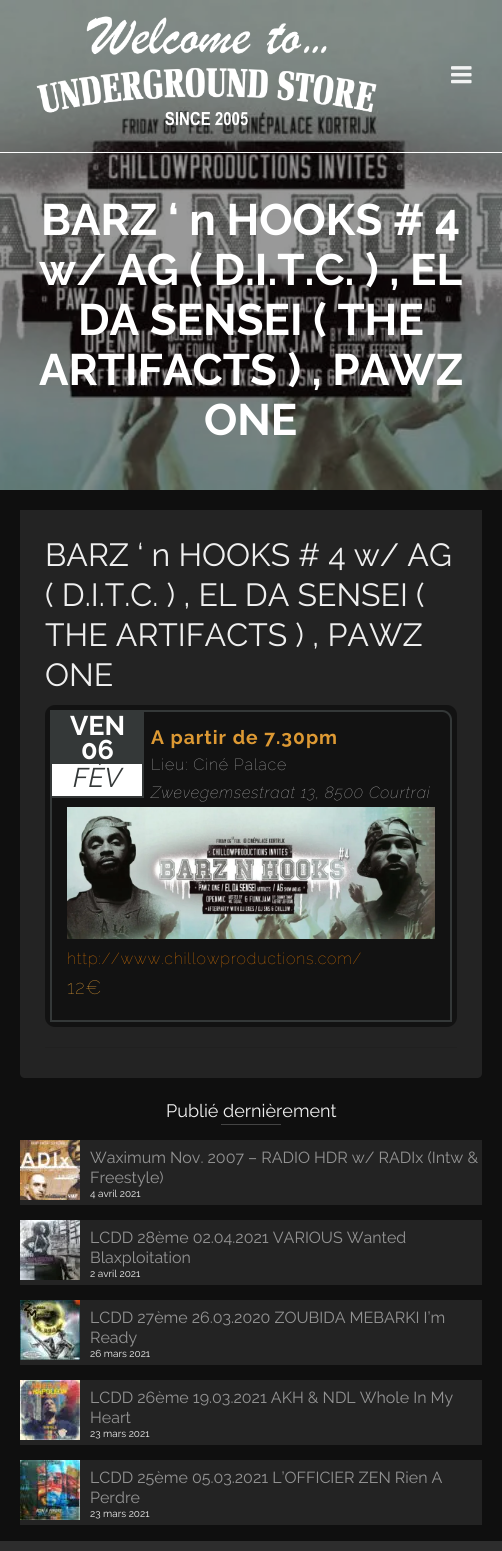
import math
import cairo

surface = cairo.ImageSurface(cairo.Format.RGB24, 502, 1551)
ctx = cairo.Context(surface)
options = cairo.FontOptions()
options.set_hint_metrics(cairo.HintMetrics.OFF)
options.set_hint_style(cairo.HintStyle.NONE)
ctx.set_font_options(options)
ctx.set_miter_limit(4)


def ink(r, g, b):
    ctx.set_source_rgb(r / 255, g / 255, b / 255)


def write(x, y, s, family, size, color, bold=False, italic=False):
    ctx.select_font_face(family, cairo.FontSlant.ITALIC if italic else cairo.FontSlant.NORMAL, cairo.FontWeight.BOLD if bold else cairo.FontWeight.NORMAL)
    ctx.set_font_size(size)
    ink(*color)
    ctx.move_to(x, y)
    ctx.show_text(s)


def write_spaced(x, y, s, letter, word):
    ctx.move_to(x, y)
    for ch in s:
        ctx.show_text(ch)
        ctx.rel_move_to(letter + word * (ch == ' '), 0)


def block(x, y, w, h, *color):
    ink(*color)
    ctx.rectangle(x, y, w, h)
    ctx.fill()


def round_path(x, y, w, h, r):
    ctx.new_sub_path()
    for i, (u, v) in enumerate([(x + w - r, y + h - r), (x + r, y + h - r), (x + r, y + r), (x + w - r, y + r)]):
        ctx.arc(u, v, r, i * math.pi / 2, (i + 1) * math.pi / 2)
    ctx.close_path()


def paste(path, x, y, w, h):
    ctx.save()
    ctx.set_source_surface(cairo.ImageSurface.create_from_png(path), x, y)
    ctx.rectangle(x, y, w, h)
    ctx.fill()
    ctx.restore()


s1 = dict(family="Raleway", size=44, color=(255, 255, 255), bold=True)
s2 = dict(family="Raleway", size=32, color=(239, 239, 239))
s3 = dict(family="Raleway", size=27, color=(255, 255, 255), bold=True)
s4 = dict(family="Raleway", size=27, color=(52, 56, 56), italic=True)
s5 = dict(family="Raleway", size=18, color=(239, 239, 239))
s6 = dict(family="Raleway", size=16, color=(147, 147, 147))
s7 = dict(family="Raleway", size=10, color=(239, 239, 239))

ink(15, 15, 15)
ctx.paint()
paste("pic3.png", 0, 0, 502, 490)
block(0, 152, 502, 1, 255, 255, 255)
paste("pic1.png", 36, 16, 341, 110)
paste("pic2.png", 451, 66, 21, 18)
write(41, 235, "BARZ ‘ n HOOKS # 4", **s1)
write(39, 285, "w/ AG ( D.I.T.C. ) , EL", **s1)
write(78, 335, "DA SENSEI ( THE", **s1)
write(39, 385, "ARTIFACTS ) , PAWZ", **s1)
write(204, 435, "ONE", **s1)
ink(35, 35, 35)
ctx.new_path()
ctx.move_to(20, 510)
ctx.line_to(482, 510)
ctx.line_to(482, 1073)
ctx.curve_to(482, 1076, 480, 1078, 477, 1078)
ctx.line_to(25, 1078)
ctx.curve_to(22, 1078, 20, 1076, 20, 1073)
ctx.close_path()
ctx.fill()
write(45, 566, "BARZ ‘ n HOOKS # 4 w/ AG", **s2)
write(45, 606, "( D.I.T.C. ) , EL DA SENSEI (", **s2)
write(45, 646, "THE ARTIFACTS ) , PAWZ", **s2)
write(45, 686, "ONE", **s2)
ink(18, 18, 18)
round_path(45, 705, 412, 322, 10)
ctx.fill()
ctx.new_path()
ctx.move_to(60, 711)
ctx.line_to(442, 711)
ctx.curve_to(447, 711, 451, 715, 451, 720)
ctx.line_to(451, 1021)
ctx.line_to(51, 1021)
ctx.line_to(51, 720)
ctx.curve_to(51, 715, 55, 711, 60, 711)
ctx.close_path()
ink(52, 56, 56)
ctx.stroke()
block(50, 710, 94, 54, 52, 56, 56)
write(70, 735, "VEN", **s3)
write(81, 759, "06", **s3)
block(52, 764, 90, 32, 255, 255, 255)
block(142, 764, 2, 34, 52, 56, 56)
block(50, 796, 94, 2, 52, 56, 56)
write(73, 787, "FÉV", **s4)
ctx.select_font_face("Raleway", cairo.FontSlant.NORMAL, cairo.FontWeight.BOLD)
ctx.set_font_size(19.25)
ink(221, 153, 51)
write_spaced(151, 744, "A partir de 7.30pm", 1, 0)
ctx.select_font_face("Raleway Thin")
ctx.set_font_size(16)
ink(191, 191, 191)
write_spaced(151, 770, "Lieu: Ciné Palace", 0.8, 0)
ctx.select_font_face("Raleway Thin", cairo.FontSlant.ITALIC)
write_spaced(151, 798, "Zwevegemsestraat 13, 8500 Courtrai", 0.8, 0)
paste("pic4.png", 67, 807, 368, 132)
ctx.select_font_face("Raleway Thin")
ink(232, 123, 0)
write_spaced(67, 964, "http://www.chillowproductions.com/", 0.8, 0)
ctx.set_font_size(19.25)
ink(221, 153, 51)
write_spaced(67, 994, "12€", 1, 0)
block(45, 1047, 412, 1, 32, 32, 32)
write(166, 1117, "Publié dernièrement", **s5)
block(221, 1124, 60, 1, 68, 68, 68)
block(20, 1140, 462, 65, 35, 35, 35)
paste("pic5.png", 20, 1140, 60, 60)
write(90, 1163, "Waximum Nov. 2007 – RADIO HDR w/ RADIx (Intw &", **s6)
write(90, 1183, "Freestyle)", **s6)
write(90, 1197, "4 avril 2021", **s7)
block(20, 1220, 462, 65, 35, 35, 35)
paste("pic6.png", 20, 1220, 60, 60)
write(90, 1243, "LCDD 28ème 02.04.2021 VARIOUS Wanted", **s6)
write(90, 1263, "Blaxploitation", **s6)
write(90, 1277, "2 avril 2021", **s7)
block(20, 1300, 462, 65, 35, 35, 35)
paste("pic7.png", 20, 1300, 60, 60)
write(90, 1323, "LCDD 27ème 26.03.2020 ZOUBIDA MEBARKI I’m", **s6)
write(90, 1343, "Ready", **s6)
write(90, 1357, "26 mars 2021", **s7)
block(20, 1380, 462, 65, 35, 35, 35)
paste("pic8.png", 20, 1380, 60, 60)
write(90, 1403, "LCDD 26ème 19.03.2021 AKH & NDL Whole In My", **s6)
write(90, 1423, "Heart", **s6)
write(90, 1437, "23 mars 2021", **s7)
block(20, 1460, 462, 65, 35, 35, 35)
paste("pic9.png", 20, 1460, 60, 60)
write(90, 1483, "LCDD 25ème 05.03.2021 L’OFFICIER ZEN Rien A", **s6)
write(90, 1503, "Perdre", **s6)
write(90, 1517, "23 mars 2021", **s7)
block(0, 1541, 502, 10, 45, 45, 45)
surface.write_to_png("screenshot.png")
